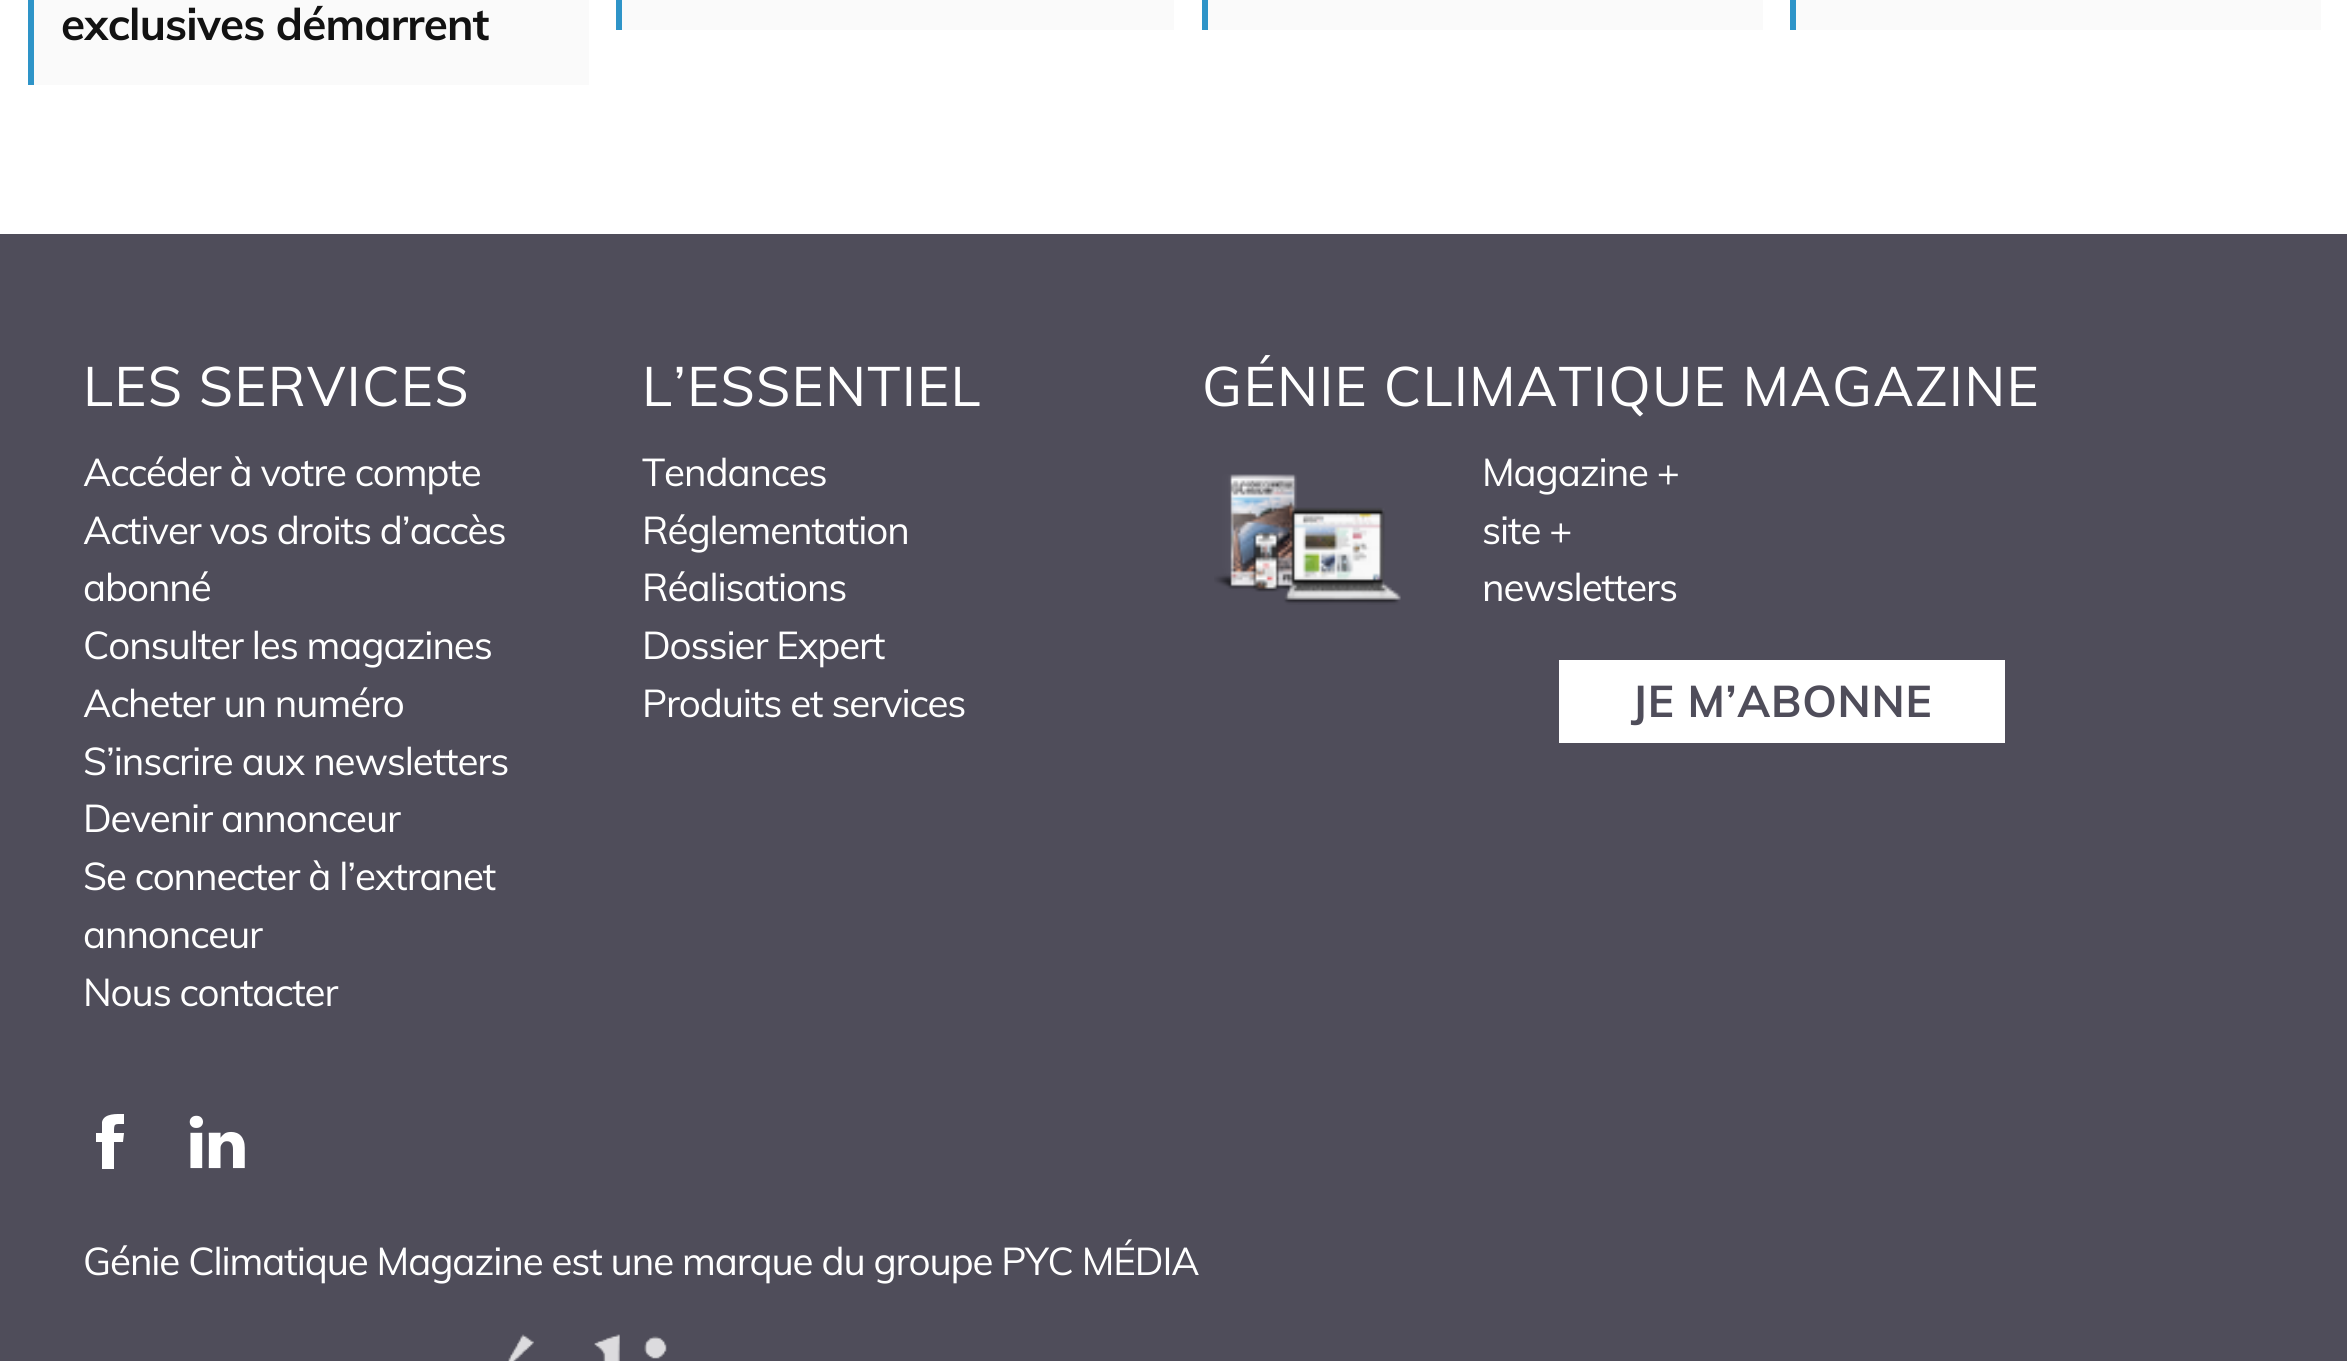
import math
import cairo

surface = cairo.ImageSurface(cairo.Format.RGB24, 2347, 1361)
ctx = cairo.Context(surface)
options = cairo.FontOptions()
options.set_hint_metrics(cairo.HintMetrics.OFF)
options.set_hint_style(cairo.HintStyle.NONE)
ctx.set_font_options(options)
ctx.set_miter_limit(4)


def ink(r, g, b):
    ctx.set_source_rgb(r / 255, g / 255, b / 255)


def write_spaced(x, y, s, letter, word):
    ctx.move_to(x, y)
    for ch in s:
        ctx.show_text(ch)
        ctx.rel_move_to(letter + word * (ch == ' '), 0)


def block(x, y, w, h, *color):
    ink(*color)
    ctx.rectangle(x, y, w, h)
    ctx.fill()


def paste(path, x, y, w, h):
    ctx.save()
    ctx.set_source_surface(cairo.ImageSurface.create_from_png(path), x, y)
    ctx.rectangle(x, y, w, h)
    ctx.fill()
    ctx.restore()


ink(255, 255, 255)
ctx.paint()
block(34, 0, 555, 85, 250, 250, 250)
block(28, 0, 6, 85, 46, 148, 200)
ctx.select_font_face("Muli", cairo.FontSlant.NORMAL, cairo.FontWeight.BOLD)
ctx.set_font_size(44)
ink(18, 18, 18)
write_spaced(61, 40, "exclusives démarrent", -0.8, 0)
block(622, 0, 552, 30, 250, 250, 250)
block(616, 0, 6, 30, 46, 148, 200)
block(1208, 0, 555, 30, 250, 250, 250)
block(1202, 0, 6, 30, 46, 148, 200)
block(1796, 0, 525, 30, 250, 250, 250)
block(1790, 0, 6, 30, 46, 148, 200)
block(0, 234, 2347, 1127, 79, 77, 90)
ctx.select_font_face("Muli")
ctx.set_font_size(55)
ink(255, 255, 255)
write_spaced(83, 406, "LES SERVICES", 1.2, 0)
ctx.set_font_size(38.5)
write_spaced(83, 486, "Accéder à votre compte", -1.1, 0)
write_spaced(83, 544, "Activer vos droits d’accès", -1.1, 0)
write_spaced(83, 601, "abonné", -1.1, 0)
write_spaced(83, 659, "Consulter les magazines", -1.1, 0)
write_spaced(83, 717, "Acheter un numéro", -1.1, 0)
write_spaced(83, 775, "S’inscrire aux newsletters", -1.1, 0)
write_spaced(83, 832, "Devenir annonceur", -1.1, 0)
write_spaced(83, 890, "Se connecter à l’extranet", -1.1, 0)
write_spaced(83, 948, "annonceur", -1.1, 0)
write_spaced(83, 1006, "Nous contacter", -1.1, 0)
ctx.set_font_size(55)
write_spaced(642, 406, "L’ESSENTIEL", 1.2, 0)
ctx.set_font_size(38.5)
write_spaced(642, 486, "Tendances", -1.1, 0)
write_spaced(642, 544, "Réglementation", -1.1, 0)
write_spaced(642, 601, "Réalisations", -1.1, 0)
write_spaced(642, 659, "Dossier Expert", -1.1, 0)
write_spaced(642, 717, "Produits et services", -1.1, 0)
ctx.set_font_size(55)
write_spaced(1202, 406, "GÉNIE CLIMATIQUE MAGAZINE", 1.2, 0)
paste("pic1.png", 1214, 474, 187, 131)
ctx.set_font_size(38.5)
write_spaced(1482, 486, "Magazine +", -1.1, 0)
write_spaced(1482, 544, "site +", -1.1, 0)
write_spaced(1482, 601, "newsletters", -1.1, 0)
block(1559, 660, 446, 83, 255, 255, 255)
ctx.select_font_face("Muli", cairo.FontSlant.NORMAL, cairo.FontWeight.BOLD)
ctx.set_font_size(44)
ink(79, 77, 90)
write_spaced(1631, 717, "JE M’ABONNE", 0.75, 0)
ink(255, 255, 255)
ctx.new_path()
ctx.move_to(114, 1142)
ctx.line_to(123, 1142)
ctx.line_to(124, 1133)
ctx.line_to(114, 1133)
ctx.curve_to(114, 1123, 114, 1124, 124, 1124)
ctx.line_to(124, 1114)
ctx.curve_to(117, 1114, 104, 1113, 102, 1122)
ctx.line_to(102, 1133)
ctx.line_to(96, 1133)
ctx.line_to(96, 1142)
ctx.line_to(102, 1142)
ctx.line_to(102, 1169)
ctx.line_to(114, 1169)
ctx.close_path()
ctx.fill()
paste("pic2.png", 189, 1115, 56, 54)
ctx.select_font_face("Muli")
ctx.set_font_size(38.5)
write_spaced(83, 1275, "Génie Climatique Magazine est une marque du groupe PYC MÉDIA", -1.1, 0)
paste("pic3.png", 508, 1334, 159, 27)
surface.write_to_png("screenshot.png")
